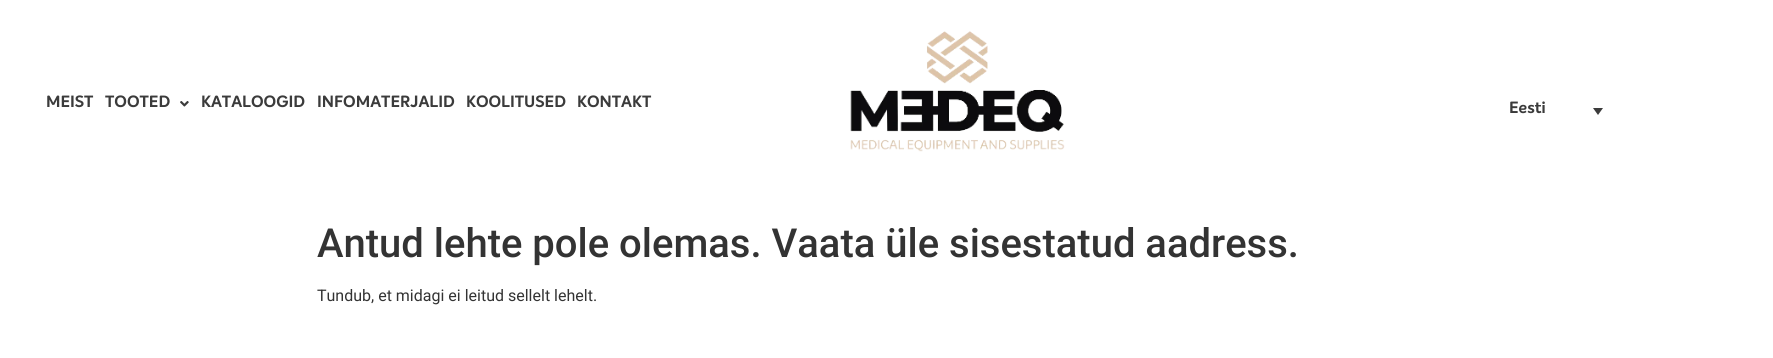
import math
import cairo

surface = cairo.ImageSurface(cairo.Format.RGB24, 1773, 358)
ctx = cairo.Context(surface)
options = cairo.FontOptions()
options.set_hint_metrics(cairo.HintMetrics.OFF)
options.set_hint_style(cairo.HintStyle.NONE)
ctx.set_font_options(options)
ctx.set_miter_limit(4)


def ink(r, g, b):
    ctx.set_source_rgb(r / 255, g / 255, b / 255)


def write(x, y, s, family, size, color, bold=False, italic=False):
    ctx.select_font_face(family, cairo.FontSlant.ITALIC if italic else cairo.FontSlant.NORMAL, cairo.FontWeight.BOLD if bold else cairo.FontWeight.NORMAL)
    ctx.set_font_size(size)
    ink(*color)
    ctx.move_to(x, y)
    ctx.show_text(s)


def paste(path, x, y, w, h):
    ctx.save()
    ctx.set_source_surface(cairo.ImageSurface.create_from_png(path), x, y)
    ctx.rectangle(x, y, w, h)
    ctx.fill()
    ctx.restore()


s1 = dict(family="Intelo", size=16, color=(59, 59, 59), bold=True)
s2 = dict(family="Roboto Medium", size=40, color=(51, 51, 51))
s3 = dict(family="Roboto", size=16, color=(51, 51, 51))

ink(255, 255, 255)
ctx.paint()
write(46, 107, "MEIST", **s1)
write(105, 107, "TOOTED", **s1)
paste("pic1.png", 180, 101, 9, 6)
write(201, 107, "KATALOOGID", **s1)
write(317, 107, "INFOMATERJALID", **s1)
write(466, 107, "KOOLITUSED", **s1)
write(577, 107, "KONTAKT", **s1)
paste("pic2.png", 850, 31, 215, 121)
write(1509, 113, "Eesti", **s1)
ctx.new_path()
ctx.move_to(1593, 108)
ctx.line_to(1603, 108)
ctx.line_to(1598, 115)
ctx.close_path()
ctx.fill()
write(317, 257, "Antud lehte pole olemas. Vaata üle sisestatud aadress.", **s2)
write(317, 301, "Tundub, et midagi ei leitud sellelt lehelt.", **s3)
surface.write_to_png("screenshot.png")
